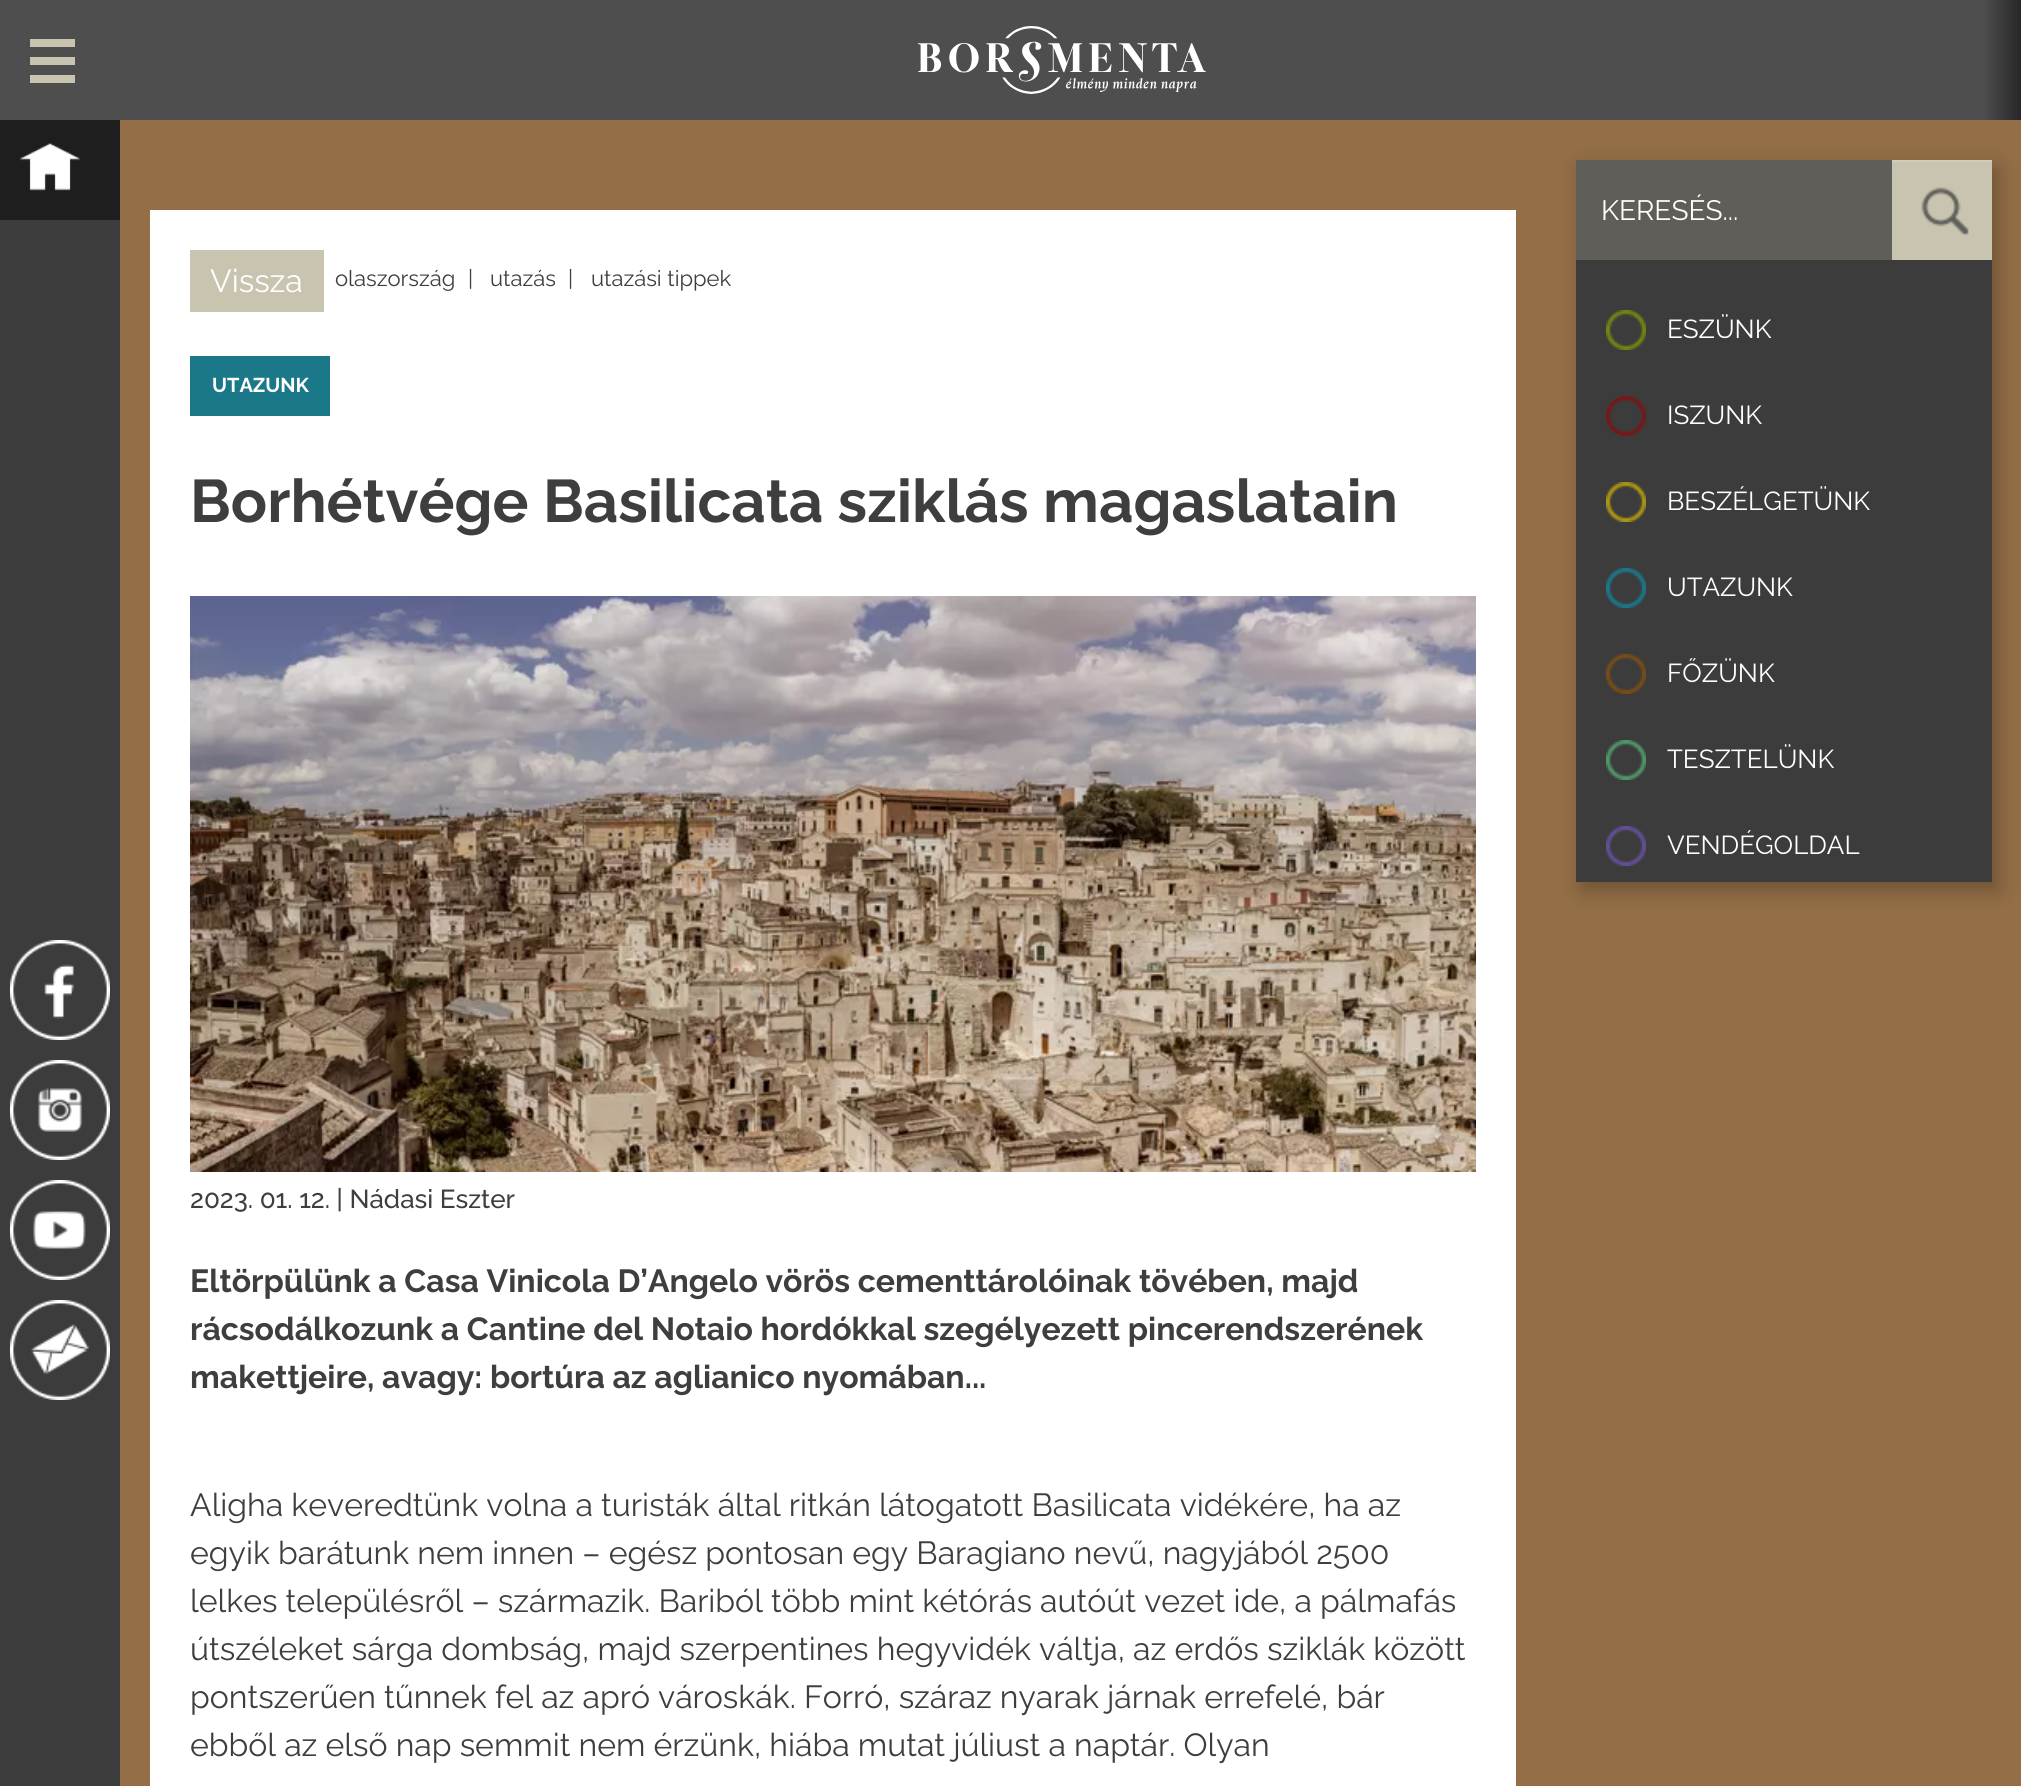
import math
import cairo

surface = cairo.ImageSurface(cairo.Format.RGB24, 2021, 1786)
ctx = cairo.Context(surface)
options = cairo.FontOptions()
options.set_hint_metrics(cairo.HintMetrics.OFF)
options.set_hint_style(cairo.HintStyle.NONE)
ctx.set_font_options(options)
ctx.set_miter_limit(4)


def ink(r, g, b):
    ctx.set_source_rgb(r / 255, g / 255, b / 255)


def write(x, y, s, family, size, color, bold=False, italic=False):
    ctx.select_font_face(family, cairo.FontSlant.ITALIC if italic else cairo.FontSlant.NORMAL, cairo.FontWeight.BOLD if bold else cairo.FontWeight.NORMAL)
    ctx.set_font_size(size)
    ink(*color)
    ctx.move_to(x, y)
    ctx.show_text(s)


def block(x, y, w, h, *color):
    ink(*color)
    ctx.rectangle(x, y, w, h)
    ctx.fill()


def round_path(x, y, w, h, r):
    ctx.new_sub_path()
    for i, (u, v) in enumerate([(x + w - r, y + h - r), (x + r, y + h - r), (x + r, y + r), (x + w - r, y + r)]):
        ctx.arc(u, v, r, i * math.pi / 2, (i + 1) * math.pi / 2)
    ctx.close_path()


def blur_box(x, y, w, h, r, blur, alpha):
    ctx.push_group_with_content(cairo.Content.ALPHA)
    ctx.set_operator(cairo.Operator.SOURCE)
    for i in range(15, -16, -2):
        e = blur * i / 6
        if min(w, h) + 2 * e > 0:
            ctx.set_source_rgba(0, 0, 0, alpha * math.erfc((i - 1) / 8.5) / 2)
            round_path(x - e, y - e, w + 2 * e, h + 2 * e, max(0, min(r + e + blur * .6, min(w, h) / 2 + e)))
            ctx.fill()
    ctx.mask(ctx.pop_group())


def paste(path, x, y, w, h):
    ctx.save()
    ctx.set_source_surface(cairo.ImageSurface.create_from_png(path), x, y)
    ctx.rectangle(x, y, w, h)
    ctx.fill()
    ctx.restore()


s1 = dict(family="Raleway", size=32, color=(255, 255, 255))
s2 = dict(family="Raleway", size=22, color=(62, 62, 62))
s3 = dict(family="Raleway", size=20, color=(255, 255, 255), bold=True)
s4 = dict(family="Raleway", size=60, color=(62, 62, 62), bold=True)
s5 = dict(family="Raleway Medium", size=26, color=(62, 62, 62))
s6 = dict(family="Raleway", size=32, color=(62, 62, 62), bold=True)
s7 = dict(family="Raleway", size=32, color=(62, 62, 62))
s8 = dict(family="Raleway", size=28, color=(255, 255, 255))
s9 = dict(family="Raleway", size=26, color=(255, 255, 255))

ink(147, 110, 70)
ctx.paint()
block(0, 0, 1982, 120, 78, 78, 78)
paste("pic1.png", 918, 26, 288, 68)
gradient = cairo.LinearGradient(1982, 0, 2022, 0)
gradient.add_color_stop_rgba(0, 0.306, 0.306, 0.306, 1)
gradient.add_color_stop_rgba(1, 0.153, 0.153, 0.153, 1)
ctx.set_source(gradient)
ctx.rectangle(1982, 0, 39, 120)
ctx.fill()
block(0, 220, 120, 1566, 60, 60, 60)
block(30, 39, 45, 8, 200, 196, 175)
block(30, 57, 45, 8, 200, 196, 175)
block(30, 75, 45, 8, 200, 196, 175)
block(0, 120, 120, 100, 30, 30, 30)
paste("pic2.png", 20, 143, 61, 48)
paste("pic3.png", 10, 940, 100, 100)
paste("pic4.png", 10, 1060, 100, 100)
paste("pic5.png", 10, 1180, 100, 100)
paste("pic6.png", 10, 1300, 100, 100)
block(150, 210, 1366, 1576, 255, 255, 255)
block(190, 250, 134, 62, 200, 196, 175)
write(210, 292, "Vissza", **s1)
write(335, 286, "olaszország", **s2)
write(468, 286, "|", **s2)
write(490, 286, "utazás", **s2)
write(568, 286, "|", **s2)
write(591, 286, "utazási tippek", **s2)
block(190, 356, 140, 60, 27, 120, 137)
write(212, 392, "UTAZUNK", **s3)
write(190, 522, "Borhétvége Basilicata sziklás magaslatain", **s4)
paste("pic7.png", 190, 596, 1286, 576)
write(190, 1208, "2023. 01. 12. | Nádasi Eszter", **s5)
write(190, 1292, "Eltörpülünk a Casa Vinicola D’Angelo vörös cementtárolóinak tövében, majd", **s6)
write(190, 1340, "rácsodálkozunk a Cantine del Notaio hordókkal szegélyezett pincerendszerének", **s6)
write(190, 1388, "makettjeire, avagy: bortúra az aglianico nyomában...", **s6)
write(190, 1516, "Aligha keveredtünk volna a turisták által ritkán látogatott Basilicata vidékére, ha az", **s7)
write(190, 1564, "egyik barátunk nem innen – egész pontosan egy Baragiano nevű, nagyjából 2500", **s7)
write(190, 1612, "lelkes településről – származik. Bariból több mint kétórás autóút vezet ide, a pálmafás", **s7)
write(190, 1660, "útszéleket sárga dombság, majd szerpentines hegyvidék váltja, az erdős sziklák között", **s7)
write(190, 1708, "pontszerűen tűnnek fel az apró városkák. Forró, száraz nyarak járnak errefelé, bár", **s7)
write(190, 1756, "ebből az első nap semmit nem érzünk, hiába mutat júliust a naptár. Olyan", **s7)
ink(0, 0, 0)
blur_box(1582, 168, 416, 722, 0, 10, 0.25)
block(1576, 260, 416, 622, 60, 60, 60)
block(1576, 160, 316, 100, 95, 94, 89)
write(1601, 220, "KERESÉS...", **s8)
paste("pic8.png", 1892, 162, 100, 98)
block(1892, 160, 100, 2, 208, 205, 187)
paste("pic9.png", 1606, 310, 40, 40)
write(1667, 338, "ESZÜNK", **s9)
paste("pic10.png", 1606, 396, 40, 40)
write(1667, 424, "ISZUNK", **s9)
paste("pic11.png", 1606, 482, 40, 40)
write(1667, 510, "BESZÉLGETÜNK", **s9)
paste("pic12.png", 1606, 568, 40, 40)
write(1667, 596, "UTAZUNK", **s9)
paste("pic13.png", 1606, 654, 40, 40)
write(1667, 682, "FŐZÜNK", **s9)
paste("pic14.png", 1606, 740, 40, 40)
write(1667, 768, "TESZTELÜNK", **s9)
paste("pic15.png", 1606, 826, 40, 40)
write(1667, 854, "VENDÉGOLDAL", **s9)
surface.write_to_png("screenshot.png")
